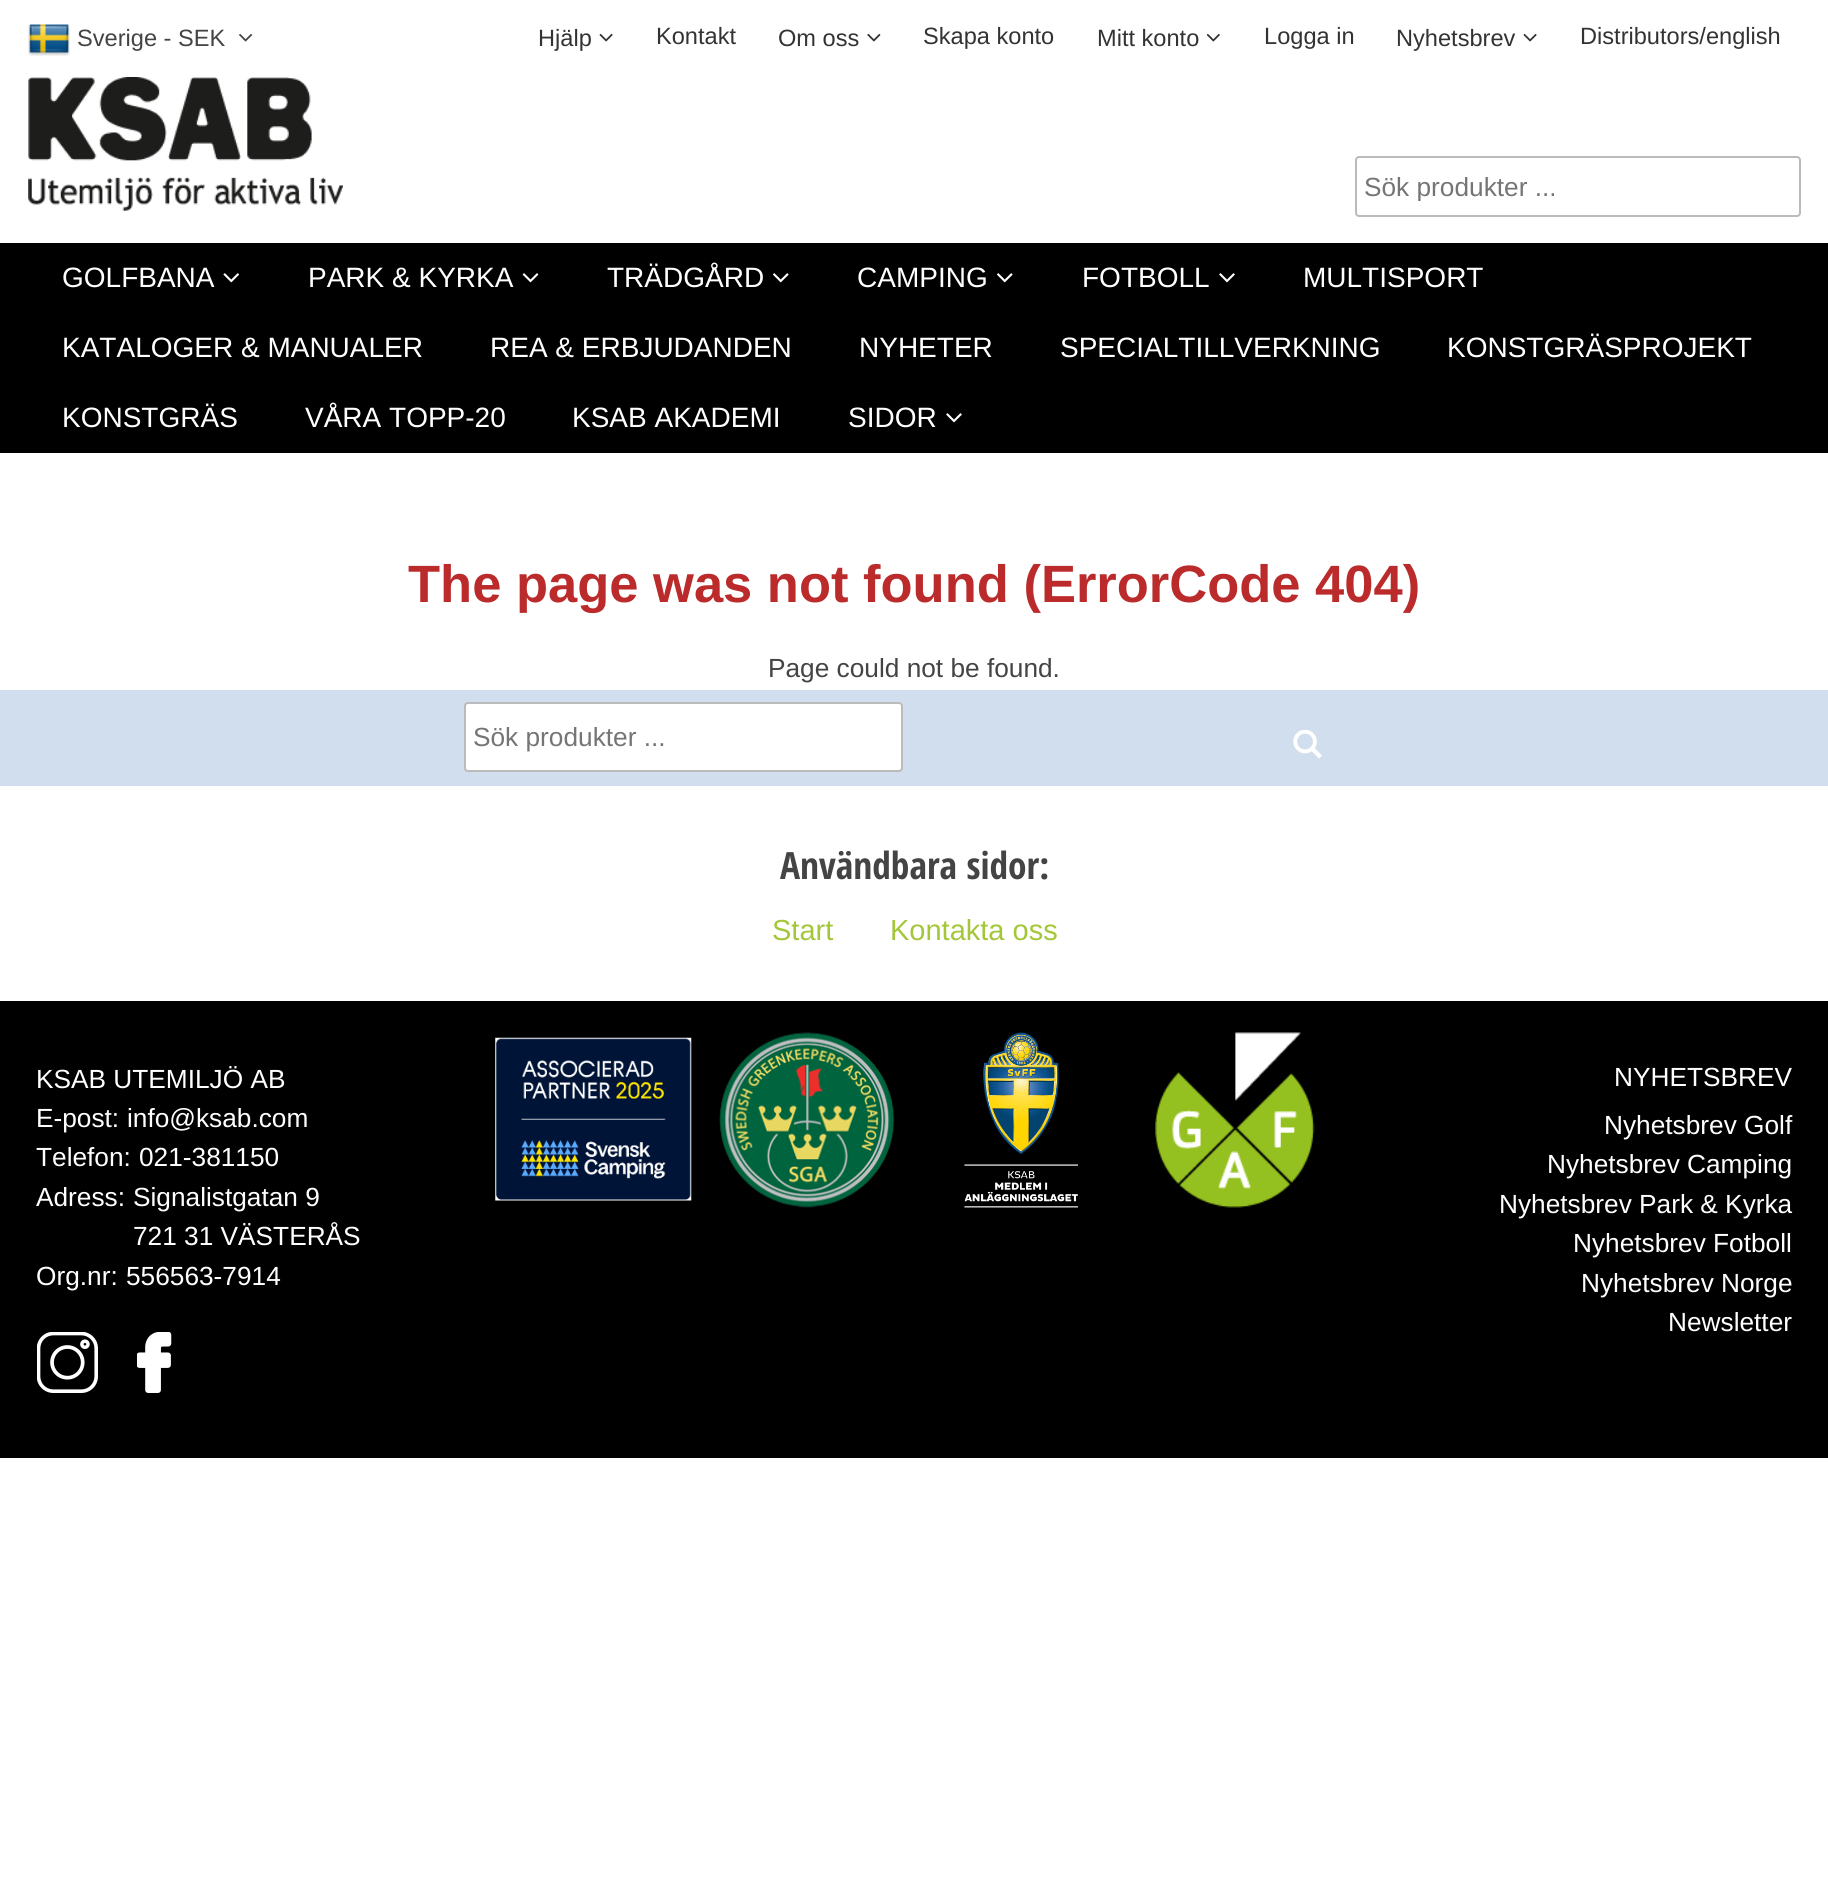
import math
import cairo

surface = cairo.ImageSurface(cairo.Format.RGB24, 1828, 1881)
ctx = cairo.Context(surface)
options = cairo.FontOptions()
options.set_hint_metrics(cairo.HintMetrics.OFF)
options.set_hint_style(cairo.HintStyle.NONE)
ctx.set_font_options(options)
ctx.set_miter_limit(4)


def ink(r, g, b):
    ctx.set_source_rgb(r / 255, g / 255, b / 255)


def write(x, y, s, family, size, color, bold=False, italic=False):
    ctx.select_font_face(family, cairo.FontSlant.ITALIC if italic else cairo.FontSlant.NORMAL, cairo.FontWeight.BOLD if bold else cairo.FontWeight.NORMAL)
    ctx.set_font_size(size)
    ink(*color)
    ctx.move_to(x, y)
    ctx.show_text(s)


def block(x, y, w, h, *color):
    ink(*color)
    ctx.rectangle(x, y, w, h)
    ctx.fill()


def round_path(x, y, w, h, r):
    ctx.new_sub_path()
    for i, (u, v) in enumerate([(x + w - r, y + h - r), (x + r, y + h - r), (x + r, y + r), (x + w - r, y + r)]):
        ctx.arc(u, v, r, i * math.pi / 2, (i + 1) * math.pi / 2)
    ctx.close_path()


def paste(path, x, y, w, h):
    ctx.save()
    ctx.set_source_surface(cairo.ImageSurface.create_from_png(path), x, y)
    ctx.rectangle(x, y, w, h)
    ctx.fill()
    ctx.restore()


s1 = dict(family="Liberation Sans", size=23.6, color=(68, 68, 68))
s2 = dict(family="Liberation Sans", size=23.6, color=(51, 51, 51))
s3 = dict(family="Liberation Sans", size=26.25, color=(117, 117, 117))
s4 = dict(family="Liberation Sans", size=28, color=(255, 255, 255))
s5 = dict(family="Liberation Sans", size=52.5, color=(187, 43, 43), bold=True)
s6 = dict(family="Liberation Sans", size=26.25, color=(68, 68, 68))
s7 = dict(family="Open Sans Condensed", size=37.5, color=(68, 68, 68), bold=True)
s8 = dict(family="Liberation Sans", size=29, color=(164, 198, 57))
s9 = dict(family="Liberation Sans", size=26.25, color=(255, 255, 255))

ink(255, 255, 255)
ctx.paint()
paste("pic1.png", 28, 24, 42, 32)
write(77, 46, "Sverige - SEK", **s1)
paste("pic2.png", 239, 33, 14, 9)
write(538, 46, "Hjälp", **s2)
paste("pic3.png", 599, 33, 14, 9)
write(656, 44, "Kontakt", **s2)
write(778, 46, "Om oss", **s2)
paste("pic4.png", 867, 33, 14, 9)
write(923, 44, "Skapa konto", **s2)
write(1097, 46, "Mitt konto", **s2)
paste("pic5.png", 1206, 33, 14, 9)
write(1264, 44, "Logga in", **s2)
write(1396, 46, "Nyhetsbrev", **s2)
paste("pic3.png", 1523, 33, 14, 9)
write(1580, 44, "Distributors/english", **s2)
paste("pic6.png", 28, 77, 315, 134)
round_path(1356, 157, 444, 59, 3)
ink(187, 187, 187)
ctx.stroke()
ctx.save()
ctx.rectangle(1365, 172, 378, 29)
ctx.clip()
write(1364, 196, "Sök produkter ...", **s3)
ctx.restore()
block(0, 243, 1828, 210, 0, 0, 0)
write(62, 287, "GOLFBANA", **s4)
paste("pic7.png", 223, 273, 16, 10)
write(308, 287, "PARK & KYRKA", **s4)
paste("pic8.png", 522, 273, 17, 10)
write(607, 287, "TRÄDGÅRD", **s4)
paste("pic9.png", 773, 273, 16, 10)
write(857, 287, "CAMPING", **s4)
paste("pic9.png", 997, 273, 16, 10)
write(1082, 287, "FOTBOLL", **s4)
paste("pic10.png", 1219, 273, 16, 10)
write(1303, 287, "MULTISPORT", **s4)
write(62, 357, "KATALOGER & MANUALER", **s4)
write(490, 357, "REA & ERBJUDANDEN", **s4)
write(859, 357, "NYHETER", **s4)
write(1060, 357, "SPECIALTILLVERKNING", **s4)
write(1447, 357, "KONSTGRÄSPROJEKT", **s4)
write(62, 427, "KONSTGRÄS", **s4)
write(305, 427, "VÅRA TOPP-20", **s4)
write(572, 427, "KSAB AKADEMI", **s4)
write(848, 427, "SIDOR", **s4)
paste("pic10.png", 946, 413, 16, 10)
write(408, 602, "The page was not found (ErrorCode 404)", **s5)
write(768, 677, "Page could not be found.", **s6)
block(0, 690, 1828, 96, 209, 222, 237)
ink(255, 255, 255)
round_path(465, 703, 437, 68, 3)
ctx.fill_preserve()
ink(187, 187, 187)
ctx.stroke()
write(473, 746, "Sök produkter ...", **s3)
paste("pic11.png", 1293, 729, 29, 30)
write(780, 879, "Användbara sidor:", **s7)
write(772, 940, "Start", **s8)
write(890, 940, "Kontakta oss", **s8)
block(0, 1001, 1828, 457, 0, 0, 0)
write(36, 1088, "KSAB UTEMILJÖ AB", **s9)
write(36, 1127, "E-post:", **s9)
write(127, 1127, "info@ksab.com", **s9)
write(36, 1166, "Telefon:", **s9)
write(139, 1166, "021-381150", **s9)
write(36, 1206, "Adress:", **s9)
write(133, 1206, "Signalistgatan 9", **s9)
write(133, 1245, "721 31 VÄSTERÅS", **s9)
write(36, 1285, "Org.nr:", **s9)
write(126, 1285, "556563-7914", **s9)
paste("pic12.png", 37, 1332, 61, 61)
paste("pic13.png", 137, 1332, 35, 61)
paste("pic14.png", 495, 1037, 197, 164)
paste("pic15.png", 719, 1032, 176, 176)
paste("pic16.png", 964, 1032, 114, 176)
paste("pic17.png", 1155, 1032, 160, 176)
write(1614, 1086, "NYHETSBREV", **s9)
write(1604, 1134, "Nyhetsbrev Golf", **s9)
write(1547, 1173, "Nyhetsbrev Camping", **s9)
write(1499, 1213, "Nyhetsbrev Park & Kyrka", **s9)
write(1573, 1252, "Nyhetsbrev Fotboll", **s9)
write(1581, 1292, "Nyhetsbrev Norge", **s9)
write(1668, 1331, "Newsletter", **s9)
surface.write_to_png("screenshot.png")
